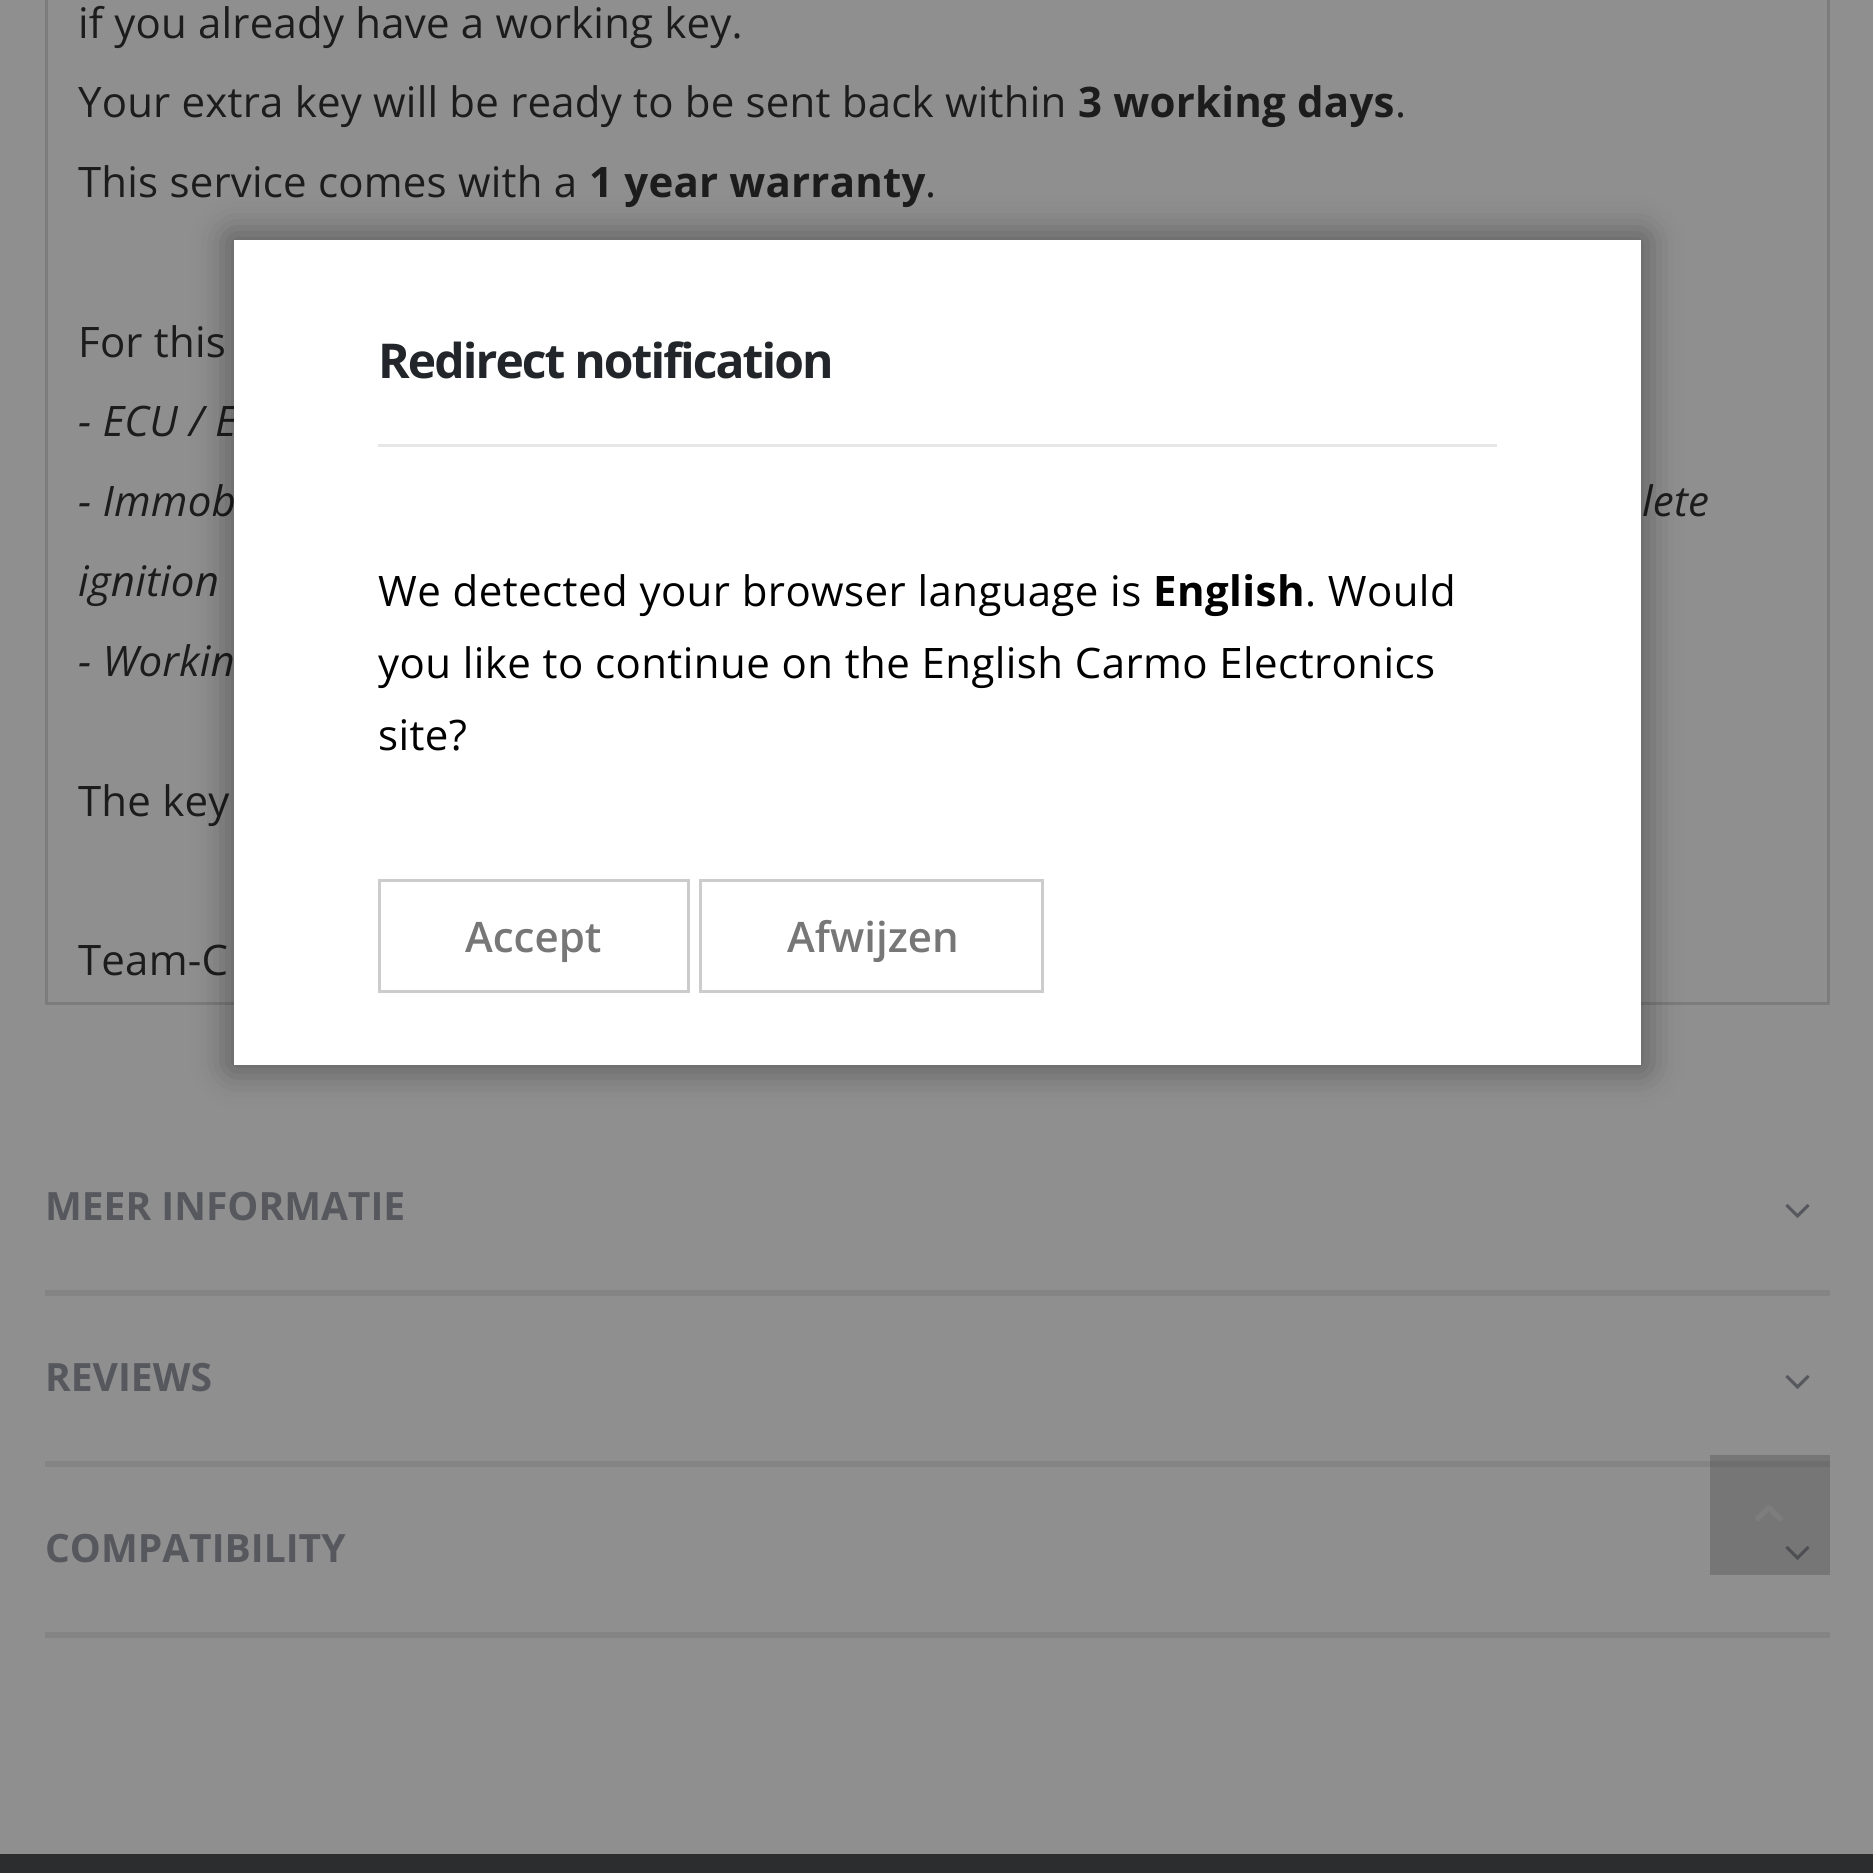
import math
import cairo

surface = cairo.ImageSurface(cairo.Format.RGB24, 1873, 1873)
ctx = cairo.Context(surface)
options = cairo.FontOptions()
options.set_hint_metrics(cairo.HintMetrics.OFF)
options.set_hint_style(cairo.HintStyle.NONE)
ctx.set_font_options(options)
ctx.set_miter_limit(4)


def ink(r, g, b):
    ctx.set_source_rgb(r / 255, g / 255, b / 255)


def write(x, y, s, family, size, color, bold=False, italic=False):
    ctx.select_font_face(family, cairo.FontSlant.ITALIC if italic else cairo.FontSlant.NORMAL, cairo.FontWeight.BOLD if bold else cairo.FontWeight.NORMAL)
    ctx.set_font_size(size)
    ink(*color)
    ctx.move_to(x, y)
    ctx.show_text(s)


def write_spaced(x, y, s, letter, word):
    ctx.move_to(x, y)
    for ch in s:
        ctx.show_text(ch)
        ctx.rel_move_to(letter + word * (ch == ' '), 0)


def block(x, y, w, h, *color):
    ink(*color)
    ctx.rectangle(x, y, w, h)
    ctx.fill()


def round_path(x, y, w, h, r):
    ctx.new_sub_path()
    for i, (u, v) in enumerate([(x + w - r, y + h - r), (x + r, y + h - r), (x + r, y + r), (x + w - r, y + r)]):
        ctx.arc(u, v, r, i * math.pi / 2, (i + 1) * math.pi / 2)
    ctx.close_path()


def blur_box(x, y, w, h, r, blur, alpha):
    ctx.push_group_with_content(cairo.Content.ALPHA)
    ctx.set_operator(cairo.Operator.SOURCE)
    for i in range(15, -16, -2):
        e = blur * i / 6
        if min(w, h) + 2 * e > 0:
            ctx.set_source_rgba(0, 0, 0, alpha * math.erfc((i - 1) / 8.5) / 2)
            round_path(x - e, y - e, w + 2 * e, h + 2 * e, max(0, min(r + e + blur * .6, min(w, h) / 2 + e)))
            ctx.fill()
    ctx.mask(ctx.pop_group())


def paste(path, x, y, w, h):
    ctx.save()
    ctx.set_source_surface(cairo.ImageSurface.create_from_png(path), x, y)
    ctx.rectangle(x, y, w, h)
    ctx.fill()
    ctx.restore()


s1 = dict(family="Open Sans", size=39, color=(86, 88, 94), bold=True)
s2 = dict(family="Open Sans SemiBold", size=42, color=(119, 119, 119))

ink(143, 143, 143)
ctx.paint()
block(1710, 1455, 120, 120, 118, 118, 118)
ctx.rectangle(46.5, -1.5, 1782, 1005)
ink(124, 124, 124)
ctx.set_line_width(3)
ctx.stroke()
ctx.select_font_face("Open Sans")
ctx.set_font_size(42)
ink(28, 28, 28)
write_spaced(78, 38, "if you already have a working key.", 0.2, 0)
write_spaced(78, 117, "Your extra key will be ready to be sent back within", 0.2, 0)
ctx.select_font_face("Open Sans", cairo.FontSlant.NORMAL, cairo.FontWeight.BOLD)
write_spaced(1078, 117, "3 working days", 0.2, 0)
ctx.select_font_face("Open Sans")
write_spaced(1395, 117, ".", 0.2, 0)
write_spaced(78, 197, "This service comes with a", 0.2, 0)
ctx.select_font_face("Open Sans", cairo.FontSlant.NORMAL, cairo.FontWeight.BOLD)
write_spaced(589, 197, "1 year warranty", 0.2, 0)
ctx.select_font_face("Open Sans")
write_spaced(925, 197, ".", 0.2, 0)
write_spaced(78, 357, "For this", 0.2, 0)
ctx.select_font_face("Open Sans", cairo.FontSlant.ITALIC)
write_spaced(78, 436, "- ECU / E", 0.2, 0)
write_spaced(78, 516, "- Immob", 0.2, 0)
write_spaced(1642, 516, "lete", 0.2, 0)
write_spaced(78, 596, "ignition", 0.2, 0)
write_spaced(78, 676, "- Workin", 0.2, 0)
ctx.select_font_face("Open Sans")
write_spaced(78, 816, "The key", 0.2, 0)
write_spaced(78, 975, "Team-C", 0.2, 0)
block(45, 1290, 1785, 6, 132, 132, 132)
write(45, 1220, "MEER INFORMATIE", **s1)
paste("pic1.png", 1785, 1204, 25, 14)
block(45, 1461, 1665, 6, 132, 132, 132)
block(1710, 1461, 120, 6, 110, 110, 110)
write(45, 1391, "REVIEWS", **s1)
paste("pic1.png", 1785, 1375, 25, 14)
block(45, 1632, 1785, 6, 132, 132, 132)
write(45, 1562, "COMPATIBILITY", **s1)
paste("pic2.png", 1785, 1546, 25, 14)
paste("pic3.png", 1755, 1505, 28, 17)
block(0, 1854, 1873, 19, 43, 45, 47)
ink(0, 0, 0)
blur_box(228, 234, 1419, 837, 0, 18, 0.35)
block(234, 240, 1407, 825, 255, 255, 255)
block(378, 444, 1119, 3, 231, 231, 231)
ctx.set_font_size(48)
ink(34, 37, 41)
write_spaced(378, 378, "Redirect notification", -1.9, 0)
ctx.select_font_face("Open Sans")
ctx.set_font_size(42)
ink(0, 0, 0)
write_spaced(378, 606, "We detected your browser language is", 0.42, 0)
ctx.select_font_face("Open Sans", cairo.FontSlant.NORMAL, cairo.FontWeight.BOLD)
write_spaced(1153, 606, "English", 0.42, 0)
ctx.select_font_face("Open Sans")
write_spaced(1305, 606, ". Would", 0.42, 0)
write_spaced(378, 678, "you like to continue on the English Carmo Electronics", 0.42, 0)
write_spaced(378, 750, "site?", 0.42, 0)
ctx.rectangle(379.5, 880.5, 309, 111)
ink(204, 204, 204)
ctx.stroke()
write(465, 952, "Accept", **s2)
ctx.rectangle(700.5, 880.5, 342, 111)
ink(204, 204, 204)
ctx.stroke()
write(787, 952, "Afwijzen", **s2)
surface.write_to_png("screenshot.png")
